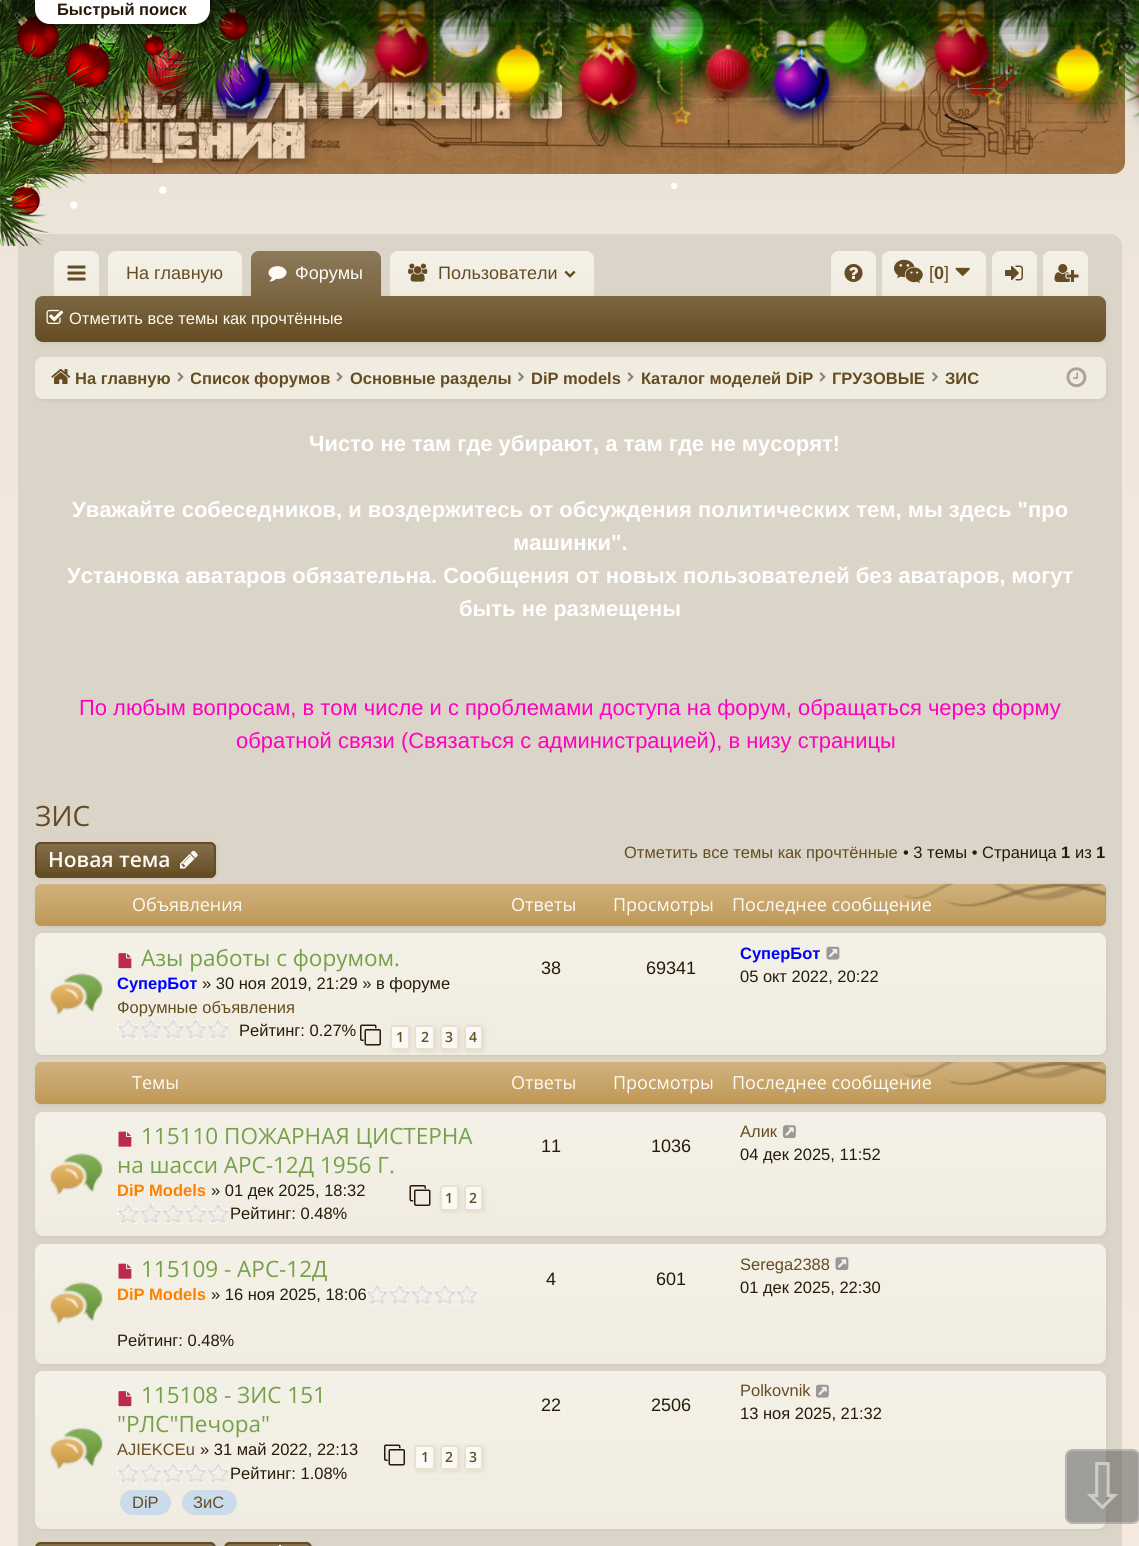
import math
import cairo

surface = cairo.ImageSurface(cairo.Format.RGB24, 1139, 1546)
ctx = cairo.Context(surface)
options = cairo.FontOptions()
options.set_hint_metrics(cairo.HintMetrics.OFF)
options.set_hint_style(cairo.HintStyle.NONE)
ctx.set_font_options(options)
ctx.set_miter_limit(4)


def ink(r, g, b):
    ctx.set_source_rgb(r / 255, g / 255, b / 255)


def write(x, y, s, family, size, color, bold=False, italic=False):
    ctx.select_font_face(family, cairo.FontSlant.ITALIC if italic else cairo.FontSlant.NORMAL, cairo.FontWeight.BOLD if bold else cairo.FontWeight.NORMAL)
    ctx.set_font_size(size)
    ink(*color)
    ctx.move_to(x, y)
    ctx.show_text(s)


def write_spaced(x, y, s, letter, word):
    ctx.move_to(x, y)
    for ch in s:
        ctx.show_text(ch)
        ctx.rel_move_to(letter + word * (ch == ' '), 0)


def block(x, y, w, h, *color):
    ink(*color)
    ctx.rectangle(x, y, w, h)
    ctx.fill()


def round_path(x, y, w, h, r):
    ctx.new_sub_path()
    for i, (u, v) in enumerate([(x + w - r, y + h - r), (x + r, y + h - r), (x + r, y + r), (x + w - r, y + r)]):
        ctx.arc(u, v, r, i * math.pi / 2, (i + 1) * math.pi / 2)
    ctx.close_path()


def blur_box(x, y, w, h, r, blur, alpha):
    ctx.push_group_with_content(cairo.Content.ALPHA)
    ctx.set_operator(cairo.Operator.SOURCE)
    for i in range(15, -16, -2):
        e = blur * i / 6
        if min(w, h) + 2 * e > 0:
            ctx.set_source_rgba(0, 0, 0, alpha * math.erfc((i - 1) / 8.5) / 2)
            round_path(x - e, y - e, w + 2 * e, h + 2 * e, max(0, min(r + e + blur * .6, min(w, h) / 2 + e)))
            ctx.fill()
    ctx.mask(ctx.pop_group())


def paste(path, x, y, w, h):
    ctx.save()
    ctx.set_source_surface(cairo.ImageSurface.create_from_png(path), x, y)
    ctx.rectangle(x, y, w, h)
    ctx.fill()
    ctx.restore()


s1 = dict(family="Liberation Sans", size=27, color=(255, 255, 255))
s2 = dict(family="Liberation Sans", size=16.5, color=(39, 27, 8), bold=True)
s3 = dict(family="Liberation Sans", size=18, color=(101, 76, 34))
s4 = dict(family="Liberation Sans", size=18, color=(254, 251, 245))
s5 = dict(family="Liberation Sans", size=18, color=(101, 76, 34), bold=True)
s6 = dict(family="Liberation Sans", size=16.5, color=(254, 251, 245))
s7 = dict(family="Liberation Sans", size=16.5, color=(101, 76, 34), bold=True)
s8 = dict(family="Liberation Sans", size=21.95, color=(255, 255, 255), bold=True)
s9 = dict(family="Liberation Sans", size=21.95, color=(255, 0, 191))
s10 = dict(family="Open Sans", size=28, color=(101, 76, 34))
s11 = dict(family="Open Sans SemiBold", size=21, color=(254, 251, 245))
s12 = dict(family="Liberation Sans", size=16.5, color=(101, 76, 34))
s13 = dict(family="Liberation Sans", size=16.5, color=(39, 27, 8))
s14 = dict(family="Open Sans", size=18, color=(254, 251, 245))
s15 = dict(family="Open Sans", size=22.5, color=(117, 161, 74))
s16 = dict(family="Liberation Sans", size=16.5, color=(0, 0, 255), bold=True)
s17 = dict(family="Open Sans SemiBold", size=14, color=(101, 76, 34))
s18 = dict(family="Liberation Sans", size=18, color=(39, 27, 8))
s19 = dict(family="Liberation Sans", size=16.5, color=(255, 128, 0), bold=True)
s20 = dict(family="Liberation Sans", size=24, color=(255, 255, 255))
s21 = dict(family="DejaVu Sans", size=63, color=(205, 204, 201))

ink(255, 255, 255)
ctx.paint()
gradient = cairo.LinearGradient(570, 0, 570, 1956)
gradient.add_color_stop_rgba(0, 0.886, 0.867, 0.82, 1)
gradient.add_color_stop_rgba(0.15, 0.941, 0.902, 0.863, 1)
gradient.add_color_stop_rgba(1, 0.965, 0.918, 0.878, 1)
ctx.set_source(gradient)
ctx.rectangle(0, 0, 1139, 1546)
ctx.fill()
paste("pic76.png", 12, 22, 1113, 152)
paste("pic1.png", 0, 0, 1139, 159)
paste("pic14.png", 10, 24, 77, 95)
paste("pic2.png", 0, 0, 38, 100)
paste("pic3.png", 206, 0, 74, 128)
paste("pic4.png", 254, 0, 62, 78)
paste("pic9.png", 306, 9, 69, 99)
paste("pic5.png", 267, 0, 41, 46)
paste("pic7.png", 365, 0, 73, 95)
paste("pic6.png", 307, 0, 76, 75)
paste("pic8.png", 431, 0, 69, 74)
paste("pic13.png", 487, 15, 63, 94)
paste("pic10.png", 433, 0, 118, 42)
paste("pic11.png", 550, 0, 10, 104)
paste("pic15.png", 95, 24, 49, 46)
paste("pic12.png", 37, 16, 76, 20)
paste("pic16.png", 138, 29, 61, 80)
paste("pic18.png", 570, 0, 75, 122)
paste("pic17.png", 559, 0, 38, 106)
paste("pic20.png", 640, 0, 74, 71)
paste("pic19.png", 597, 0, 91, 40)
paste("pic21.png", 765, 0, 74, 128)
paste("pic22.png", 814, 0, 62, 79)
paste("pic28.png", 866, 9, 68, 96)
paste("pic23.png", 825, 0, 42, 46)
paste("pic25.png", 925, 0, 72, 94)
paste("pic24.png", 867, 0, 75, 75)
paste("pic26.png", 990, 0, 69, 74)
paste("pic27.png", 698, 13, 60, 95)
paste("pic31.png", 1046, 15, 64, 94)
paste("pic29.png", 993, 0, 117, 42)
paste("pic30.png", 1110, 0, 9, 103)
paste("pic33.png", 1129, 28, 10, 83)
paste("pic32.png", 1119, 0, 20, 106)
ink(219, 213, 201)
round_path(19, 235, 1102, 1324, 11)
ctx.fill_preserve()
ctx.stroke()
write(158, 199, "•", **s1)
write(69, 214, "•", **s1)
paste("pic34.png", 0, 0, 330, 246)
ink(0, 0, 0)
blur_box(0, -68, 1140, 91, 0, 22.5, 0.75)
blur_box(36, 5, 176, 24, 15, 4, 0.2)
ink(255, 255, 255)
ctx.new_path()
ctx.move_to(35, 0)
ctx.line_to(210, 0)
ctx.line_to(210, 9)
ctx.curve_to(210, 17.5, 203.5, 24, 195, 24)
ctx.line_to(50, 24)
ctx.curve_to(41.5, 24, 35, 17.5, 35, 9)
ctx.close_path()
ctx.fill()
write(57, 15, "Быстрый поиск", **s2)
paste("pic35.png", 1116, 36, 21, 18)
ink(240, 236, 224)
ctx.new_path()
ctx.move_to(62, 251)
ctx.line_to(91, 251)
ctx.curve_to(95.5, 251, 99, 254.5, 99, 259)
ctx.line_to(99, 296)
ctx.line_to(54, 296)
ctx.line_to(54, 259)
ctx.curve_to(54, 254.5, 57.5, 251, 62, 251)
ctx.close_path()
ctx.fill()
gradient = cairo.LinearGradient(77, 251, 77, 296)
gradient.add_color_stop_rgba(0, 1, 1, 1, 0.25)
gradient.add_color_stop_rgba(1, 1, 1, 1, 0)
ctx.set_source(gradient)
ctx.new_path()
ctx.move_to(62, 251)
ctx.line_to(91, 251)
ctx.curve_to(95.5, 251, 99, 254.5, 99, 259)
ctx.line_to(99, 296)
ctx.line_to(54, 296)
ctx.line_to(54, 259)
ctx.curve_to(54, 254.5, 57.5, 251, 62, 251)
ctx.close_path()
ctx.fill()
paste("pic36.png", 67, 265, 19, 16)
ink(240, 236, 224)
ctx.new_path()
ctx.move_to(116, 251)
ctx.line_to(234, 251)
ctx.curve_to(238.5, 251, 242, 254.5, 242, 259)
ctx.line_to(242, 296)
ctx.line_to(108, 296)
ctx.line_to(108, 259)
ctx.curve_to(108, 254.5, 111.5, 251, 116, 251)
ctx.close_path()
ctx.fill()
gradient = cairo.LinearGradient(175, 251, 175, 296)
gradient.add_color_stop_rgba(0, 1, 1, 1, 0.25)
gradient.add_color_stop_rgba(1, 1, 1, 1, 0)
ctx.set_source(gradient)
ctx.new_path()
ctx.move_to(116, 251)
ctx.line_to(234, 251)
ctx.curve_to(238.5, 251, 242, 254.5, 242, 259)
ctx.line_to(242, 296)
ctx.line_to(108, 296)
ctx.line_to(108, 259)
ctx.curve_to(108, 254.5, 111.5, 251, 116, 251)
ctx.close_path()
ctx.fill()
write(126, 279, "На главную", **s3)
ctx.new_path()
ctx.move_to(259, 251)
ctx.line_to(373, 251)
ctx.curve_to(377.5, 251, 381, 254.5, 381, 259)
ctx.line_to(381, 296)
ctx.line_to(251, 296)
ctx.line_to(251, 259)
ctx.curve_to(251, 254.5, 254.5, 251, 259, 251)
ctx.close_path()
ctx.fill()
gradient = cairo.LinearGradient(316, 251, 316, 296)
gradient.add_color_stop_rgba(0, 1, 1, 1, 0.25)
gradient.add_color_stop_rgba(1, 1, 1, 1, 0.15)
ctx.set_source(gradient)
ctx.new_path()
ctx.move_to(259, 251)
ctx.line_to(373, 251)
ctx.curve_to(377.5, 251, 381, 254.5, 381, 259)
ctx.line_to(381, 296)
ctx.line_to(251, 296)
ctx.line_to(251, 259)
ctx.curve_to(251, 254.5, 254.5, 251, 259, 251)
ctx.close_path()
ctx.fill()
paste("pic37.png", 268, 266, 19, 16)
write(295, 279, "Форумы", **s4)
ink(240, 236, 224)
ctx.new_path()
ctx.move_to(398, 251)
ctx.line_to(586, 251)
ctx.curve_to(590.5, 251, 594, 254.5, 594, 259)
ctx.line_to(594, 296)
ctx.line_to(390, 296)
ctx.line_to(390, 259)
ctx.curve_to(390, 254.5, 393.5, 251, 398, 251)
ctx.close_path()
ctx.fill()
gradient = cairo.LinearGradient(492, 251, 492, 296)
gradient.add_color_stop_rgba(0, 1, 1, 1, 0.25)
gradient.add_color_stop_rgba(1, 1, 1, 1, 0)
ctx.set_source(gradient)
ctx.new_path()
ctx.move_to(398, 251)
ctx.line_to(586, 251)
ctx.curve_to(590.5, 251, 594, 254.5, 594, 259)
ctx.line_to(594, 296)
ctx.line_to(390, 296)
ctx.line_to(390, 259)
ctx.curve_to(390, 254.5, 393.5, 251, 398, 251)
ctx.close_path()
ctx.fill()
ink(240, 236, 224)
ctx.new_path()
ctx.move_to(839, 251)
ctx.line_to(868, 251)
ctx.curve_to(872.5, 251, 876, 254.5, 876, 259)
ctx.line_to(876, 296)
ctx.line_to(831, 296)
ctx.line_to(831, 259)
ctx.curve_to(831, 254.5, 834.5, 251, 839, 251)
ctx.close_path()
ctx.fill()
gradient = cairo.LinearGradient(854, 251, 854, 296)
gradient.add_color_stop_rgba(0, 1, 1, 1, 0.25)
gradient.add_color_stop_rgba(1, 1, 1, 1, 0)
ctx.set_source(gradient)
ctx.new_path()
ctx.move_to(839, 251)
ctx.line_to(868, 251)
ctx.curve_to(872.5, 251, 876, 254.5, 876, 259)
ctx.line_to(876, 296)
ctx.line_to(831, 296)
ctx.line_to(831, 259)
ctx.curve_to(831, 254.5, 834.5, 251, 839, 251)
ctx.close_path()
ctx.fill()
ink(240, 236, 224)
ctx.new_path()
ctx.move_to(890, 251)
ctx.line_to(978, 251)
ctx.curve_to(982.5, 251, 986, 254.5, 986, 259)
ctx.line_to(986, 296)
ctx.line_to(882, 296)
ctx.line_to(882, 259)
ctx.curve_to(882, 254.5, 885.5, 251, 890, 251)
ctx.close_path()
ctx.fill()
gradient = cairo.LinearGradient(934, 251, 934, 296)
gradient.add_color_stop_rgba(0, 1, 1, 1, 0.25)
gradient.add_color_stop_rgba(1, 1, 1, 1, 0)
ctx.set_source(gradient)
ctx.new_path()
ctx.move_to(890, 251)
ctx.line_to(978, 251)
ctx.curve_to(982.5, 251, 986, 254.5, 986, 259)
ctx.line_to(986, 296)
ctx.line_to(882, 296)
ctx.line_to(882, 259)
ctx.curve_to(882, 254.5, 885.5, 251, 890, 251)
ctx.close_path()
ctx.fill()
ink(240, 236, 224)
ctx.new_path()
ctx.move_to(1000, 251)
ctx.line_to(1029, 251)
ctx.curve_to(1033.5, 251, 1037, 254.5, 1037, 259)
ctx.line_to(1037, 296)
ctx.line_to(992, 296)
ctx.line_to(992, 259)
ctx.curve_to(992, 254.5, 995.5, 251, 1000, 251)
ctx.close_path()
ctx.fill()
gradient = cairo.LinearGradient(1014, 251, 1014, 296)
gradient.add_color_stop_rgba(0, 1, 1, 1, 0.25)
gradient.add_color_stop_rgba(1, 1, 1, 1, 0)
ctx.set_source(gradient)
ctx.new_path()
ctx.move_to(1000, 251)
ctx.line_to(1029, 251)
ctx.curve_to(1033.5, 251, 1037, 254.5, 1037, 259)
ctx.line_to(1037, 296)
ctx.line_to(992, 296)
ctx.line_to(992, 259)
ctx.curve_to(992, 254.5, 995.5, 251, 1000, 251)
ctx.close_path()
ctx.fill()
ink(240, 236, 224)
ctx.new_path()
ctx.move_to(1051, 251)
ctx.line_to(1080, 251)
ctx.curve_to(1084.5, 251, 1088, 254.5, 1088, 259)
ctx.line_to(1088, 296)
ctx.line_to(1043, 296)
ctx.line_to(1043, 259)
ctx.curve_to(1043, 254.5, 1046.5, 251, 1051, 251)
ctx.close_path()
ctx.fill()
gradient = cairo.LinearGradient(1065, 251, 1065, 296)
gradient.add_color_stop_rgba(0, 1, 1, 1, 0.25)
gradient.add_color_stop_rgba(1, 1, 1, 1, 0)
ctx.set_source(gradient)
ctx.new_path()
ctx.move_to(1051, 251)
ctx.line_to(1080, 251)
ctx.curve_to(1084.5, 251, 1088, 254.5, 1088, 259)
ctx.line_to(1088, 296)
ctx.line_to(1043, 296)
ctx.line_to(1043, 259)
ctx.curve_to(1043, 254.5, 1046.5, 251, 1051, 251)
ctx.close_path()
ctx.fill()
ink(101, 76, 34)
blur_box(36, 297, 1071, 47, 8, 2, 0.1)
ink(101, 76, 34)
round_path(35, 296, 1071, 46, 8)
ctx.fill()
gradient = cairo.LinearGradient(570, 295, 570, 342)
gradient.add_color_stop_rgba(0, 1, 1, 1, 0.15)
gradient.add_color_stop_rgba(1, 1, 1, 1, 0)
ctx.set_source(gradient)
round_path(35, 296, 1071, 46, 8)
ctx.fill()
ink(101, 76, 34)
ctx.new_path()
ctx.move_to(254, 294)
ctx.line_to(378, 294)
ctx.curve_to(379.5, 294, 381, 295.5, 381, 297)
ctx.line_to(251, 297)
ctx.curve_to(251, 295.5, 252.5, 294, 254, 294)
ctx.close_path()
ctx.fill()
ctx.set_source_rgba(1, 1, 1, 0.15)
ctx.new_path()
ctx.move_to(254, 294)
ctx.line_to(378, 294)
ctx.curve_to(379.5, 294, 381, 295.5, 381, 297)
ctx.line_to(251, 297)
ctx.curve_to(251, 295.5, 252.5, 294, 254, 294)
ctx.close_path()
ctx.fill()
paste("pic38.png", 408, 263, 20, 19)
write(438, 279, "Пользователи", **s3)
paste("pic39.png", 564, 270, 12, 8)
paste("pic40.png", 844, 264, 19, 18)
paste("pic41.png", 894, 259, 29, 25)
write(929, 279, "[", **s3)
write(934, 279, "0", **s5)
write(944, 279, "]", **s3)
paste("pic42.png", 955, 267, 15, 9)
paste("pic43.png", 1005, 265, 18, 16)
paste("pic44.png", 1054, 264, 25, 18)
paste("pic45.png", 46, 309, 18, 15)
write(69, 324, "Отметить все темы как прочтённые", **s6)
ink(101, 76, 34)
blur_box(36, 359, 1071, 42, 8, 2, 0.1)
ink(240, 236, 224)
round_path(35, 357, 1071, 42, 8)
ctx.fill()
paste("pic46.png", 51, 369, 20, 15)
write(75, 384, "На главную", **s7)
paste("pic47.png", 177, 372, 7, 10)
ctx.save()
ctx.rectangle(191, 362, 139, 33)
ctx.clip()
write(190, 384, "Список форумов", **s7)
ctx.restore()
paste("pic47.png", 336, 372, 7, 10)
write(350, 384, "Основные разделы", **s7)
paste("pic48.png", 518, 372, 6, 10)
write(531, 384, "DiP models", **s7)
paste("pic47.png", 627, 372, 7, 10)
write(641, 384, "Каталог моделей DiP", **s7)
paste("pic47.png", 819, 372, 7, 10)
write(832, 384, "ГРУЗОВЫЕ", **s7)
paste("pic48.png", 932, 372, 6, 10)
write(945, 384, "ЗИС", **s7)
paste("pic49.png", 1066, 367, 21, 21)
write(309, 451, "Чисто не там где убирают, а там где не мусорят!", **s8)
write(72, 517, "Уважайте собеседников, и воздержитесь от обсуждения политических тем, мы здесь \"про", **s8)
write(513, 550, "машинки\".", **s8)
write_spaced(67, 583, "Установка аватаров обязательна. Сообщения от новых пользователей без аватаров, могут", 0, -0.1)
write(459, 616, "быть не размещены", **s8)
write(79, 715, "По любым вопросам, в том числе и с проблемами доступа на форум, обращаться через форму", **s9)
write(236, 748, "обратной связи (Связаться с администрацией), в низу страницы", **s9)
write(35, 826, "ЗИС", **s10)
ink(101, 76, 34)
blur_box(36, 843, 182, 36, 6, 2, 0.1)
ink(101, 76, 34)
round_path(35, 842, 181, 36, 6)
ctx.fill()
ctx.save()
round_path(35, 842, 181, 36, 6)
ctx.clip()
gradient = cairo.LinearGradient(125, 843, 125, 876)
gradient.add_color_stop_rgba(0, 1, 1, 1, 0.2)
gradient.add_color_stop_rgba(1, 1, 1, 1, 0)
ctx.set_source(gradient)
ctx.rectangle(35, 843, 181, 29)
ctx.fill()
ctx.restore()
round_path(36, 843, 179, 34, 5)
ctx.stroke()
write(48, 867, "Новая тема", **s11)
paste("pic50.png", 180, 850, 18, 19)
write(624, 858, "Отметить все темы как прочтённые", **s12)
write(903, 858, "• 3 темы • Страница", **s13)
write(1061, 858, "1", **s2)
write(1075, 858, "из", **s13)
write(1096, 858, "1", **s2)
ink(101, 76, 34)
blur_box(36, 935, 1071, 121, 8, 2, 0.1)
ink(240, 236, 224)
round_path(35, 933, 1071, 122, 8)
ctx.fill()
gradient = cairo.LinearGradient(570, 933, 570, 1055)
gradient.add_color_stop_rgba(0, 1, 1, 1, 0.25)
gradient.add_color_stop_rgba(1, 1, 1, 1, 0)
ctx.set_source(gradient)
round_path(35, 933, 1071, 122, 8)
ctx.fill()
ink(101, 76, 34)
blur_box(36, 885, 1071, 42, 6, 2, 0.1)
ink(192, 152, 85)
round_path(35, 884, 1071, 42, 6)
ctx.fill()
paste("pic51.png", 35, 883, 1071, 38)
write(132, 911, "Объявления", **s14)
write(511, 911, "Ответы", **s14)
write(613, 911, "Просмотры", **s14)
write(732, 911, "Последнее сообщение", **s14)
paste("pic52.png", 50, 973, 53, 42)
paste("pic53.png", 118, 953, 14, 16)
write(141, 966, "Азы работы с форумом.", **s15)
write(117, 989, "СуперБот", **s16)
write(202, 989, "» 30 ноя 2019, 21:29 » в форуме", **s13)
write(117, 1013, "Форумные объявления", **s12)
paste("pic54.png", 118, 1018, 112, 22)
paste("pic55.png", 117, 1024, 2, 7)
write(239, 1036, "Рейтинг: 0.27%", **s13)
paste("pic56.png", 360, 1024, 21, 22)
ink(101, 76, 34)
blur_box(392, 1026, 19, 26, 3, 2, 0.1)
ink(251, 249, 246)
round_path(390, 1025, 20, 25, 3)
ctx.fill()
gradient = cairo.LinearGradient(400, 1026, 400, 1049)
gradient.add_color_stop_rgba(0, 1, 1, 1, 0.2)
gradient.add_color_stop_rgba(1, 1, 1, 1, 0)
ctx.set_source(gradient)
ctx.rectangle(390, 1026, 20, 1)
ctx.fill()
round_path(391, 1026, 18, 23, 2)
ink(232, 225, 207)
ctx.stroke()
write(396, 1042, "1", **s17)
ink(101, 76, 34)
blur_box(416, 1026, 21, 26, 3, 2, 0.1)
ink(251, 249, 246)
round_path(414, 1025, 21, 25, 3)
ctx.fill()
gradient = cairo.LinearGradient(425, 1026, 425, 1049)
gradient.add_color_stop_rgba(0, 1, 1, 1, 0.2)
gradient.add_color_stop_rgba(1, 1, 1, 1, 0)
ctx.set_source(gradient)
ctx.rectangle(414, 1026, 21, 1)
ctx.fill()
round_path(415, 1026, 19, 23, 2)
ink(232, 225, 207)
ctx.stroke()
write(421, 1042, "2", **s17)
ink(101, 76, 34)
blur_box(441, 1026, 20, 26, 3, 2, 0.1)
ink(251, 249, 246)
round_path(440, 1025, 19, 25, 3)
ctx.fill()
gradient = cairo.LinearGradient(449, 1026, 449, 1049)
gradient.add_color_stop_rgba(0, 1, 1, 1, 0.2)
gradient.add_color_stop_rgba(1, 1, 1, 1, 0)
ctx.set_source(gradient)
ctx.rectangle(440, 1026, 19, 1)
ctx.fill()
round_path(441, 1026, 17, 23, 2)
ink(232, 225, 207)
ctx.stroke()
write(445, 1042, "3", **s17)
ink(101, 76, 34)
blur_box(465, 1026, 20, 26, 3, 2, 0.1)
ink(251, 249, 246)
round_path(464, 1025, 19, 25, 3)
ctx.fill()
gradient = cairo.LinearGradient(473, 1026, 473, 1049)
gradient.add_color_stop_rgba(0, 1, 1, 1, 0.2)
gradient.add_color_stop_rgba(1, 1, 1, 1, 0)
ctx.set_source(gradient)
ctx.rectangle(464, 1026, 19, 1)
ctx.fill()
round_path(465, 1026, 17, 23, 2)
ink(232, 225, 207)
ctx.stroke()
write(469, 1042, "4", **s17)
write(541, 974, "38", **s18)
write(646, 974, "69341", **s18)
write(740, 959, "СуперБот", **s16)
paste("pic57.png", 826, 946, 14, 14)
write(740, 982, "05 окт 2022, 20:22", **s13)
ink(101, 76, 34)
blur_box(36, 1113, 1071, 125, 8, 2, 0.1)
ink(240, 236, 224)
round_path(35, 1112, 1071, 124, 8)
ctx.fill()
gradient = cairo.LinearGradient(570, 1112, 570, 1236)
gradient.add_color_stop_rgba(0, 1, 1, 1, 0.25)
gradient.add_color_stop_rgba(1, 1, 1, 1, 0)
ctx.set_source(gradient)
round_path(35, 1112, 1071, 124, 8)
ctx.fill()
ink(101, 76, 34)
blur_box(36, 1064, 1071, 42, 6, 2, 0.1)
ink(192, 152, 85)
round_path(35, 1062, 1071, 42, 6)
ctx.fill()
paste("pic58.png", 35, 1062, 1071, 38)
write(132, 1089, "Темы", **s14)
write(511, 1089, "Ответы", **s14)
write(613, 1089, "Просмотры", **s14)
write(732, 1089, "Последнее сообщение", **s14)
paste("pic59.png", 50, 1153, 53, 42)
paste("pic60.png", 118, 1131, 14, 16)
write(141, 1144, "115110 ПОЖАРНАЯ ЦИСТЕРНА", **s15)
write(117, 1173, "на шасси АРС-12Д 1956 Г.", **s15)
write(117, 1196, "DiP Models", **s19)
write(211, 1196, "» 01 дек 2025, 18:32", **s13)
paste("pic61.png", 409, 1185, 22, 21)
ink(101, 76, 34)
blur_box(441, 1187, 20, 25, 3, 2, 0.1)
ink(251, 249, 246)
round_path(441, 1186, 17, 24, 2)
ctx.fill_preserve()
ink(232, 225, 207)
ctx.stroke()
write(445, 1203, "1", **s17)
ink(101, 76, 34)
blur_box(465, 1187, 20, 25, 3, 2, 0.1)
ink(251, 249, 246)
round_path(465, 1186, 17, 24, 2)
ctx.fill_preserve()
ink(232, 225, 207)
ctx.stroke()
write(469, 1203, "2", **s17)
paste("pic62.png", 118, 1203, 112, 21)
paste("pic63.png", 117, 1209, 2, 7)
write(230, 1219, "Рейтинг: 0.48%", **s13)
write(541, 1152, "11", **s18)
write(651, 1152, "1036", **s18)
write(740, 1137, "Алик", **s12)
paste("pic64.png", 783, 1125, 13, 14)
write(740, 1160, "04 дек 2025, 11:52", **s13)
ink(101, 76, 34)
blur_box(36, 1245, 1071, 120, 8, 2, 0.1)
ink(240, 236, 224)
round_path(35, 1244, 1071, 120, 8)
ctx.fill()
gradient = cairo.LinearGradient(570, 1244, 570, 1364)
gradient.add_color_stop_rgba(0, 1, 1, 1, 0.25)
gradient.add_color_stop_rgba(1, 1, 1, 1, 0)
ctx.set_source(gradient)
round_path(35, 1244, 1071, 120, 8)
ctx.fill()
paste("pic65.png", 50, 1282, 53, 42)
paste("pic66.png", 118, 1263, 14, 16)
write(141, 1277, "115109 - АРС-12Д", **s15)
write(117, 1300, "DiP Models", **s19)
write(211, 1300, "» 16 ноя 2025, 18:06", **s13)
paste("pic67.png", 367, 1284, 112, 21)
paste("pic68.png", 366, 1290, 2, 7)
write(117, 1346, "Рейтинг: 0.48%", **s13)
write(546, 1285, "4", **s18)
write(656, 1285, "601", **s18)
write(740, 1270, "Serega2388", **s12)
paste("pic69.png", 835, 1257, 14, 14)
write(740, 1293, "01 дек 2025, 22:30", **s13)
ink(101, 76, 34)
blur_box(36, 1373, 1071, 157, 8, 2, 0.1)
ink(240, 236, 224)
round_path(35, 1371, 1071, 158, 8)
ctx.fill()
gradient = cairo.LinearGradient(570, 1371, 570, 1529)
gradient.add_color_stop_rgba(0, 1, 1, 1, 0.25)
gradient.add_color_stop_rgba(1, 1, 1, 1, 0)
ctx.set_source(gradient)
round_path(35, 1371, 1071, 158, 8)
ctx.fill()
paste("pic70.png", 50, 1427, 53, 42)
paste("pic71.png", 118, 1391, 14, 16)
write(141, 1403, "115108 - ЗИС 151", **s15)
write(117, 1432, "\"РЛС\"Печора\"", **s15)
write(117, 1455, "AJIEKCEu", **s12)
write(200, 1455, "» 31 май 2022, 22:13", **s13)
paste("pic72.png", 384, 1444, 21, 22)
ink(101, 76, 34)
blur_box(416, 1446, 21, 26, 3, 2, 0.1)
ink(251, 249, 246)
round_path(414, 1445, 21, 25, 3)
ctx.fill()
gradient = cairo.LinearGradient(425, 1446, 425, 1469)
gradient.add_color_stop_rgba(0, 1, 1, 1, 0.2)
gradient.add_color_stop_rgba(1, 1, 1, 1, 0)
ctx.set_source(gradient)
ctx.rectangle(414, 1446, 21, 1)
ctx.fill()
round_path(415, 1446, 19, 23, 2)
ink(232, 225, 207)
ctx.stroke()
write(421, 1462, "1", **s17)
ink(101, 76, 34)
blur_box(441, 1446, 20, 26, 3, 2, 0.1)
ink(251, 249, 246)
round_path(440, 1445, 19, 25, 3)
ctx.fill()
gradient = cairo.LinearGradient(449, 1446, 449, 1469)
gradient.add_color_stop_rgba(0, 1, 1, 1, 0.2)
gradient.add_color_stop_rgba(1, 1, 1, 1, 0)
ctx.set_source(gradient)
ctx.rectangle(440, 1446, 19, 1)
ctx.fill()
round_path(441, 1446, 17, 23, 2)
ink(232, 225, 207)
ctx.stroke()
write(445, 1462, "2", **s17)
ink(101, 76, 34)
blur_box(465, 1446, 20, 26, 3, 2, 0.1)
ink(251, 249, 246)
round_path(464, 1445, 19, 25, 3)
ctx.fill()
gradient = cairo.LinearGradient(473, 1446, 473, 1469)
gradient.add_color_stop_rgba(0, 1, 1, 1, 0.2)
gradient.add_color_stop_rgba(1, 1, 1, 1, 0)
ctx.set_source(gradient)
ctx.rectangle(464, 1446, 19, 1)
ctx.fill()
round_path(465, 1446, 17, 23, 2)
ink(232, 225, 207)
ctx.stroke()
write(469, 1462, "3", **s17)
paste("pic73.png", 118, 1462, 112, 22)
paste("pic74.png", 117, 1468, 2, 7)
write(230, 1479, "Рейтинг: 1.08%", **s13)
ink(202, 220, 235)
round_path(120, 1490, 51, 25, 12.5)
ctx.fill()
write(132, 1508, "DiP", **s12)
ink(202, 220, 235)
round_path(182, 1490, 55, 25, 12.5)
ctx.fill()
write(193, 1508, "ЗиС", **s12)
write(541, 1411, "22", **s18)
write(651, 1411, "2506", **s18)
write(740, 1396, "Polkovnik", **s12)
paste("pic75.png", 816, 1384, 13, 14)
write(740, 1419, "13 ноя 2025, 21:32", **s13)
ink(101, 76, 34)
blur_box(36, 1544, 182, 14, 6, 2, 0.1)
ink(101, 76, 34)
round_path(35, 1542, 181, 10, 6)
ctx.fill()
ctx.save()
round_path(35, 1542, 181, 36, 6)
ctx.clip()
gradient = cairo.LinearGradient(125, 1544, 125, 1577)
gradient.add_color_stop_rgba(0, 1, 1, 1, 0.2)
gradient.add_color_stop_rgba(1, 1, 1, 1, 0)
ctx.set_source(gradient)
ctx.rectangle(35, 1544, 181, 2)
ctx.fill()
ctx.restore()
round_path(36, 1543, 179, 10, 5)
ctx.stroke()
ink(101, 76, 34)
blur_box(225, 1544, 89, 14, 6, 2, 0.1)
ink(101, 76, 34)
round_path(224, 1542, 88, 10, 6)
ctx.fill()
ctx.save()
round_path(224, 1542, 88, 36, 6)
ctx.clip()
gradient = cairo.LinearGradient(268, 1544, 268, 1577)
gradient.add_color_stop_rgba(0, 1, 1, 1, 0.2)
gradient.add_color_stop_rgba(1, 1, 1, 1, 0)
ctx.set_source(gradient)
ctx.rectangle(224, 1544, 88, 2)
ctx.fill()
ctx.restore()
round_path(225, 1543, 86, 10, 5)
ctx.stroke()
block(279, 1545, 2, 1, 254, 251, 245)
write(670, 194, "•", **s20)
ctx.set_source_rgba(0.31, 0.31, 0.31, 0.5)
round_path(1065, 1449, 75, 75, 8)
ctx.fill()
round_path(1066, 1450, 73, 73, 7)
ctx.set_source_rgba(0.8, 0.8, 0.8, 0.5)
ctx.stroke()
write(1076, 1508, "⇩", **s21)
surface.write_to_png("screenshot.png")
